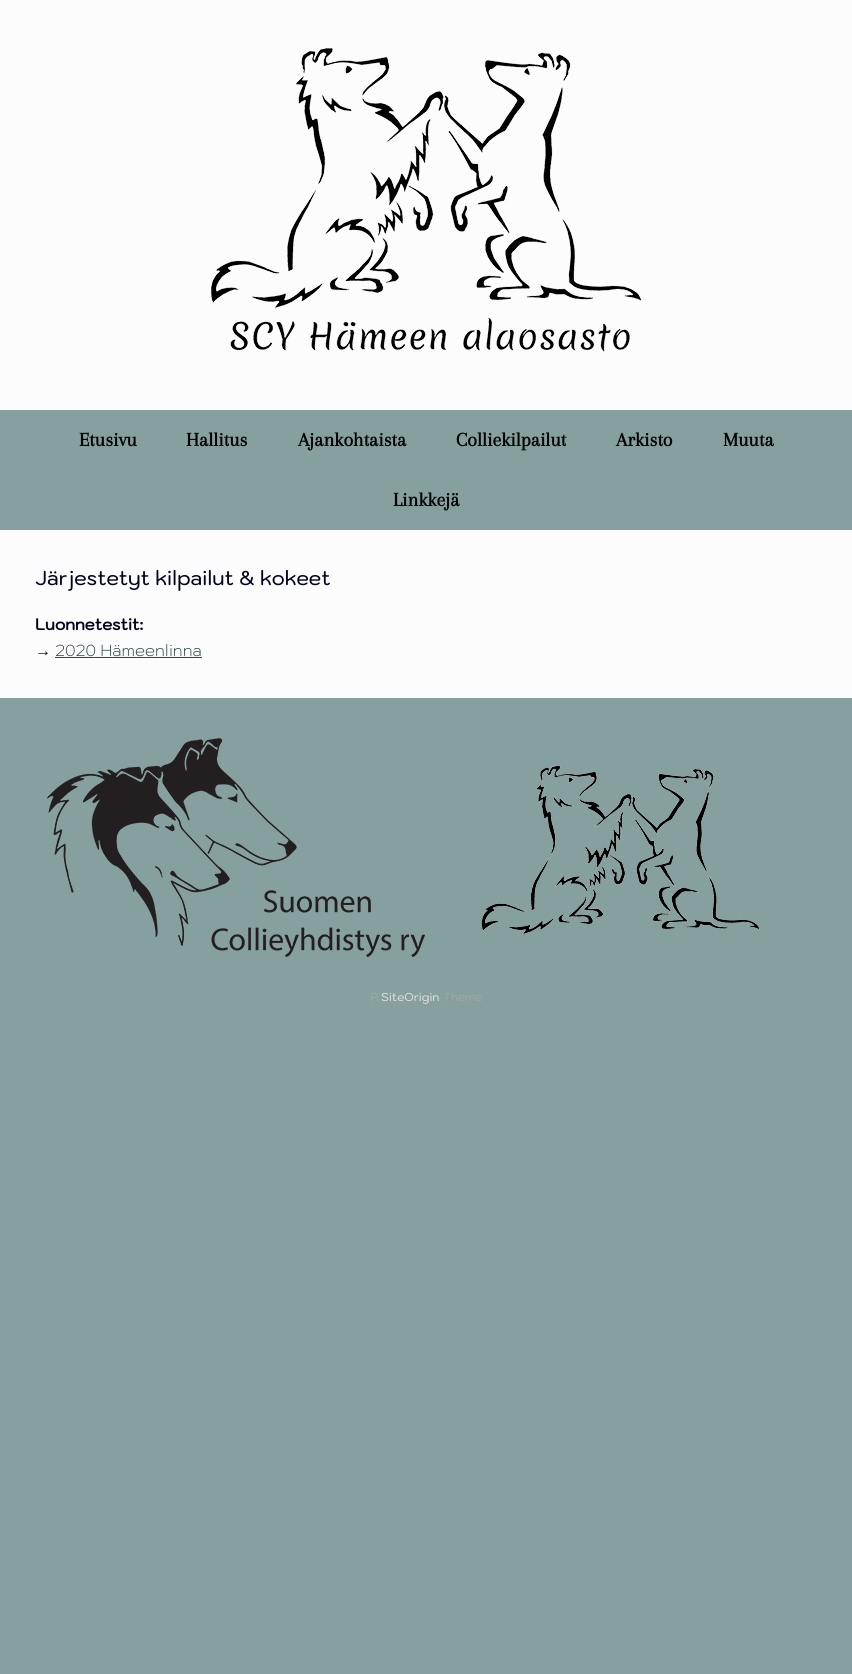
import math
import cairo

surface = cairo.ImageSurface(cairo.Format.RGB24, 852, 1674)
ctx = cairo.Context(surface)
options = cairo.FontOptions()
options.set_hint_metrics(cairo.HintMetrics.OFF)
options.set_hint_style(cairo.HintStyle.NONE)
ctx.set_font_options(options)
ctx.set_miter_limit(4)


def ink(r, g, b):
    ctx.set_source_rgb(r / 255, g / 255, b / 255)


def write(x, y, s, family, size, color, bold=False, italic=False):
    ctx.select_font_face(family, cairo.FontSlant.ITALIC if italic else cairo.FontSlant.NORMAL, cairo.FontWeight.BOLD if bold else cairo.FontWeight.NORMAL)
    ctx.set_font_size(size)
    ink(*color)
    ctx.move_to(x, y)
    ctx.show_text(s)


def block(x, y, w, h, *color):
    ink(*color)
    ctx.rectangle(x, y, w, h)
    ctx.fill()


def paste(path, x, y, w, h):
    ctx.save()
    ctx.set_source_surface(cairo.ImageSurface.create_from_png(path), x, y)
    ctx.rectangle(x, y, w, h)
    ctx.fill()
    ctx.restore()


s1 = dict(family="Arapey", size=20, color=(2, 2, 2), bold=True)
s2 = dict(family="Kodchasan Medium", size=20, color=(0, 3, 30))
s3 = dict(family="Kodchasan", size=16, color=(0, 3, 30), bold=True)
s4 = dict(family="Liberation Serif", size=16, color=(0, 3, 30))
s5 = dict(family="Kodchasan ExtraLight", size=16, color=(43, 73, 73))
s6 = dict(family="Kodchasan ExtraLight", size=11.5, color=(170, 170, 170))
s7 = dict(family="Kodchasan Medium", size=11.5, color=(221, 221, 221))

ink(134, 160, 159)
ctx.paint()
block(0, 0, 852, 410, 252, 252, 252)
paste("pic1.png", 211, 48, 431, 304)
write(79, 446, "Etusivu", **s1)
write(186, 446, "Hallitus", **s1)
write(298, 446, "Ajankohtaista", **s1)
write(456, 446, "Colliekilpailut", **s1)
write(616, 446, "Arkisto", **s1)
write(723, 446, "Muuta", **s1)
write(393, 506, "Linkkejä", **s1)
block(0, 530, 852, 168, 252, 252, 252)
write(35, 585, "Järjestetyt kilpailut & kokeet", **s2)
write(35, 630, "Luonnetestit:", **s3)
write(35, 656, "→", **s4)
write(55, 656, "2020 Hämeenlinna", **s5)
block(55, 657, 147, 1, 43, 73, 73)
paste("pic2.png", 47, 738, 378, 219)
paste("pic3.png", 481, 765, 279, 170)
write(370, 1001, "A", **s6)
write(381, 1001, "SiteOrigin", **s7)
write(443, 1001, "Theme", **s6)
surface.write_to_png("screenshot.png")
